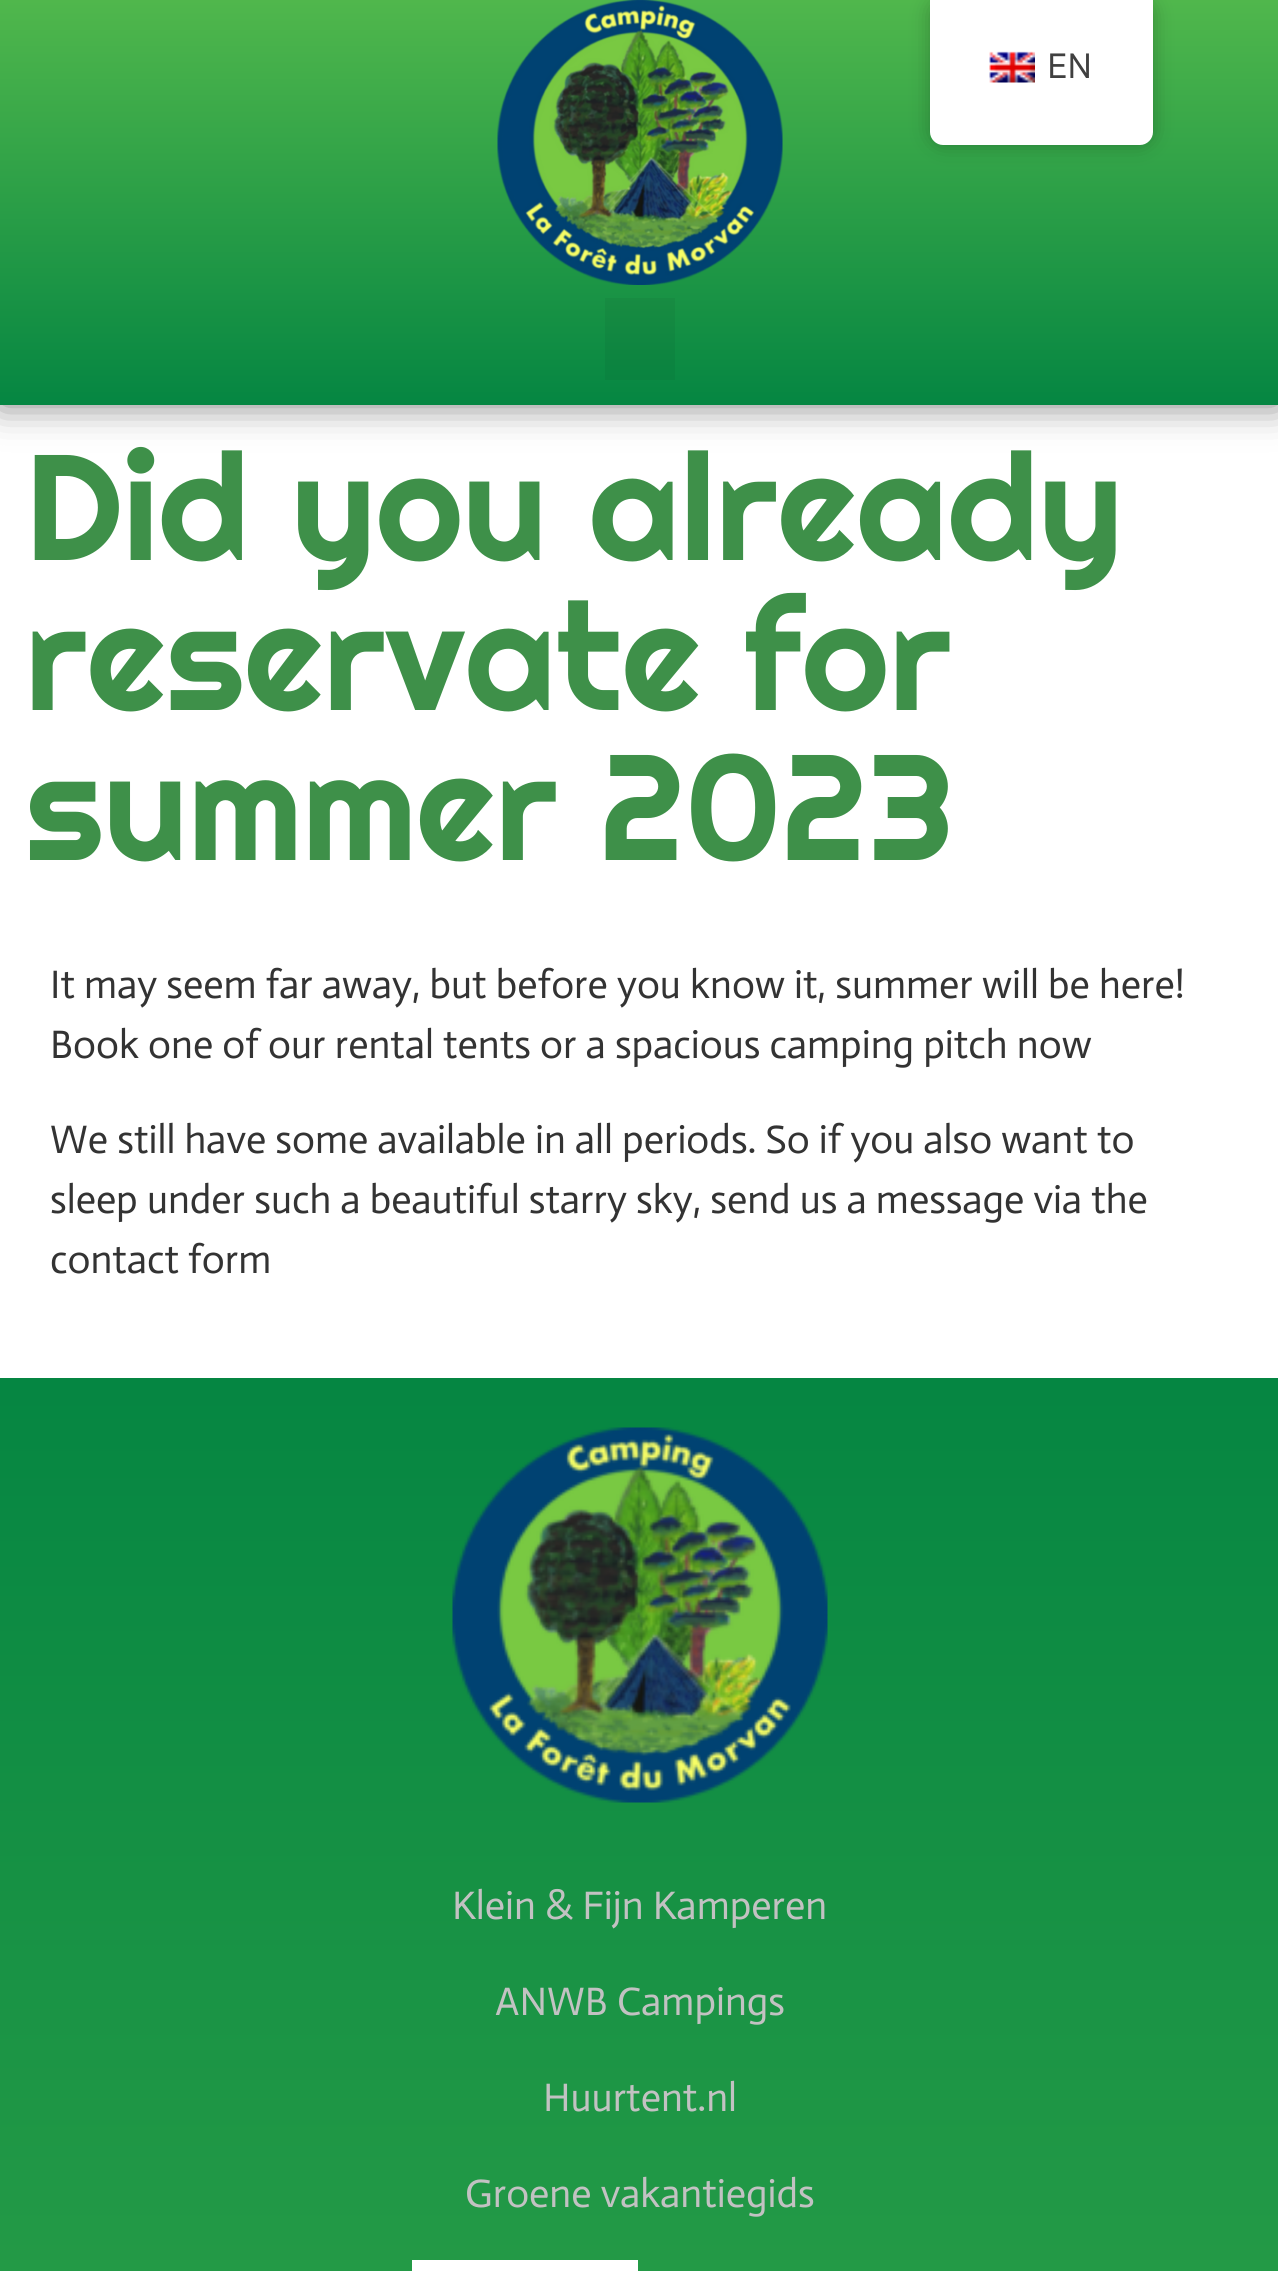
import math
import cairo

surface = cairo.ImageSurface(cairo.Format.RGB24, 1278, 2271)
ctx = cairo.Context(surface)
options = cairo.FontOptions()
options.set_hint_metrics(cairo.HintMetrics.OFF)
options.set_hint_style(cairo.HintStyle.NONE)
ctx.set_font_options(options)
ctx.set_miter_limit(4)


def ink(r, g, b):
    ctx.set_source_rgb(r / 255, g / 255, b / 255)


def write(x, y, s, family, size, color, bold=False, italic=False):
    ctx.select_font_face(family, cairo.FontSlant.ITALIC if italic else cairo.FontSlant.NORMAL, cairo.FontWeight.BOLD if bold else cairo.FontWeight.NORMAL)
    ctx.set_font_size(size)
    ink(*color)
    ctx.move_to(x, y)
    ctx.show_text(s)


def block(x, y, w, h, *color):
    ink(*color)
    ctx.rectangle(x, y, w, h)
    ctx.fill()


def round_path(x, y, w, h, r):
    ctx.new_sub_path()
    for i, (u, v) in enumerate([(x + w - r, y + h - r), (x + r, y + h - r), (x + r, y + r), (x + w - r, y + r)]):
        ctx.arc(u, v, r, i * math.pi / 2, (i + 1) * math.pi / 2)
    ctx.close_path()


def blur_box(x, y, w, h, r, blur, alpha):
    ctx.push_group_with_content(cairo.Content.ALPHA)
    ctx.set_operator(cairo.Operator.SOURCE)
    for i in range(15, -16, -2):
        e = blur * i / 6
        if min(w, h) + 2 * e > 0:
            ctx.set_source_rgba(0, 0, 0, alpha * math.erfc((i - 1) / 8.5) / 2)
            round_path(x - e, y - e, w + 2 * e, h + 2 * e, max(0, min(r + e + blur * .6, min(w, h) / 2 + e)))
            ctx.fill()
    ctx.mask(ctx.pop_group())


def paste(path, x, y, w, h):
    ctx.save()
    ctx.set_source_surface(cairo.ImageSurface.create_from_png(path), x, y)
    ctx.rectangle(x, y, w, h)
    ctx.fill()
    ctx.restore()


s1 = dict(family="Actor", size=36, color=(64, 64, 64))
s2 = dict(family="Righteous", size=150, color=(62, 144, 73))
s3 = dict(family="Actor", size=40, color=(51, 51, 51))
s4 = dict(family="Actor", size=40, color=(194, 194, 194))

ink(255, 255, 255)
ctx.paint()
ink(0, 0, 0)
blur_box(0, 0, 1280, 405, 0, 19, 0.5)
gradient = cairo.LinearGradient(640, 0, 640, 405)
gradient.add_color_stop_rgba(0, 0.314, 0.718, 0.298, 1)
gradient.add_color_stop_rgba(1, 0.02, 0.525, 0.259, 1)
ctx.set_source(gradient)
ctx.rectangle(0, 0, 1278, 405)
ctx.fill()
paste("pic1.png", 497, 0, 286, 285)
ctx.set_source_rgba(0, 0, 0, 0.05)
ctx.rectangle(605, 298, 70, 82)
ctx.fill()
ink(0, 0, 0)
blur_box(930, 0, 223, 145, 13, 10, 0.25)
ink(255, 255, 255)
ctx.new_path()
ctx.move_to(930, 0)
ctx.line_to(1153, 0)
ctx.line_to(1153, 132)
ctx.curve_to(1153, 139, 1147, 145, 1140, 145)
ctx.line_to(943, 145)
ctx.curve_to(936, 145, 930, 139, 930, 132)
ctx.close_path()
ctx.fill()
paste("pic2.png", 989, 51, 46, 32)
write(1047, 78, "EN", **s1)
write(25, 560, "Did you already", **s2)
write(25, 710, "reservate for", **s2)
write(25, 860, "summer 2023", **s2)
write(50, 998, "It may seem far away, but before you know it, summer will be here!", **s3)
write(50, 1058, "Book one of our rental tents or a spacious camping pitch now", **s3)
write(50, 1153, "We still have some available in all periods. So if you also want to", **s3)
write(50, 1213, "sleep under such a beautiful starry sky, send us a message via the", **s3)
write(50, 1273, "contact form", **s3)
gradient = cairo.LinearGradient(640, 1378, 640, 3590)
gradient.add_color_stop_rgba(0, 0.02, 0.525, 0.259, 1)
gradient.add_color_stop_rgba(1, 0.314, 0.718, 0.298, 1)
ctx.set_source(gradient)
ctx.rectangle(0, 1378, 1278, 893)
ctx.fill()
paste("pic3.png", 452, 1427, 376, 376)
write(452, 1919, "Klein & Fijn Kamperen", **s4)
write(495, 2015, "ANWB Campings", **s4)
write(543, 2111, "Huurtent.nl", **s4)
write(465, 2207, "Groene vakantiegids", **s4)
block(412, 2260, 226, 11, 255, 255, 255)
surface.write_to_png("screenshot.png")
